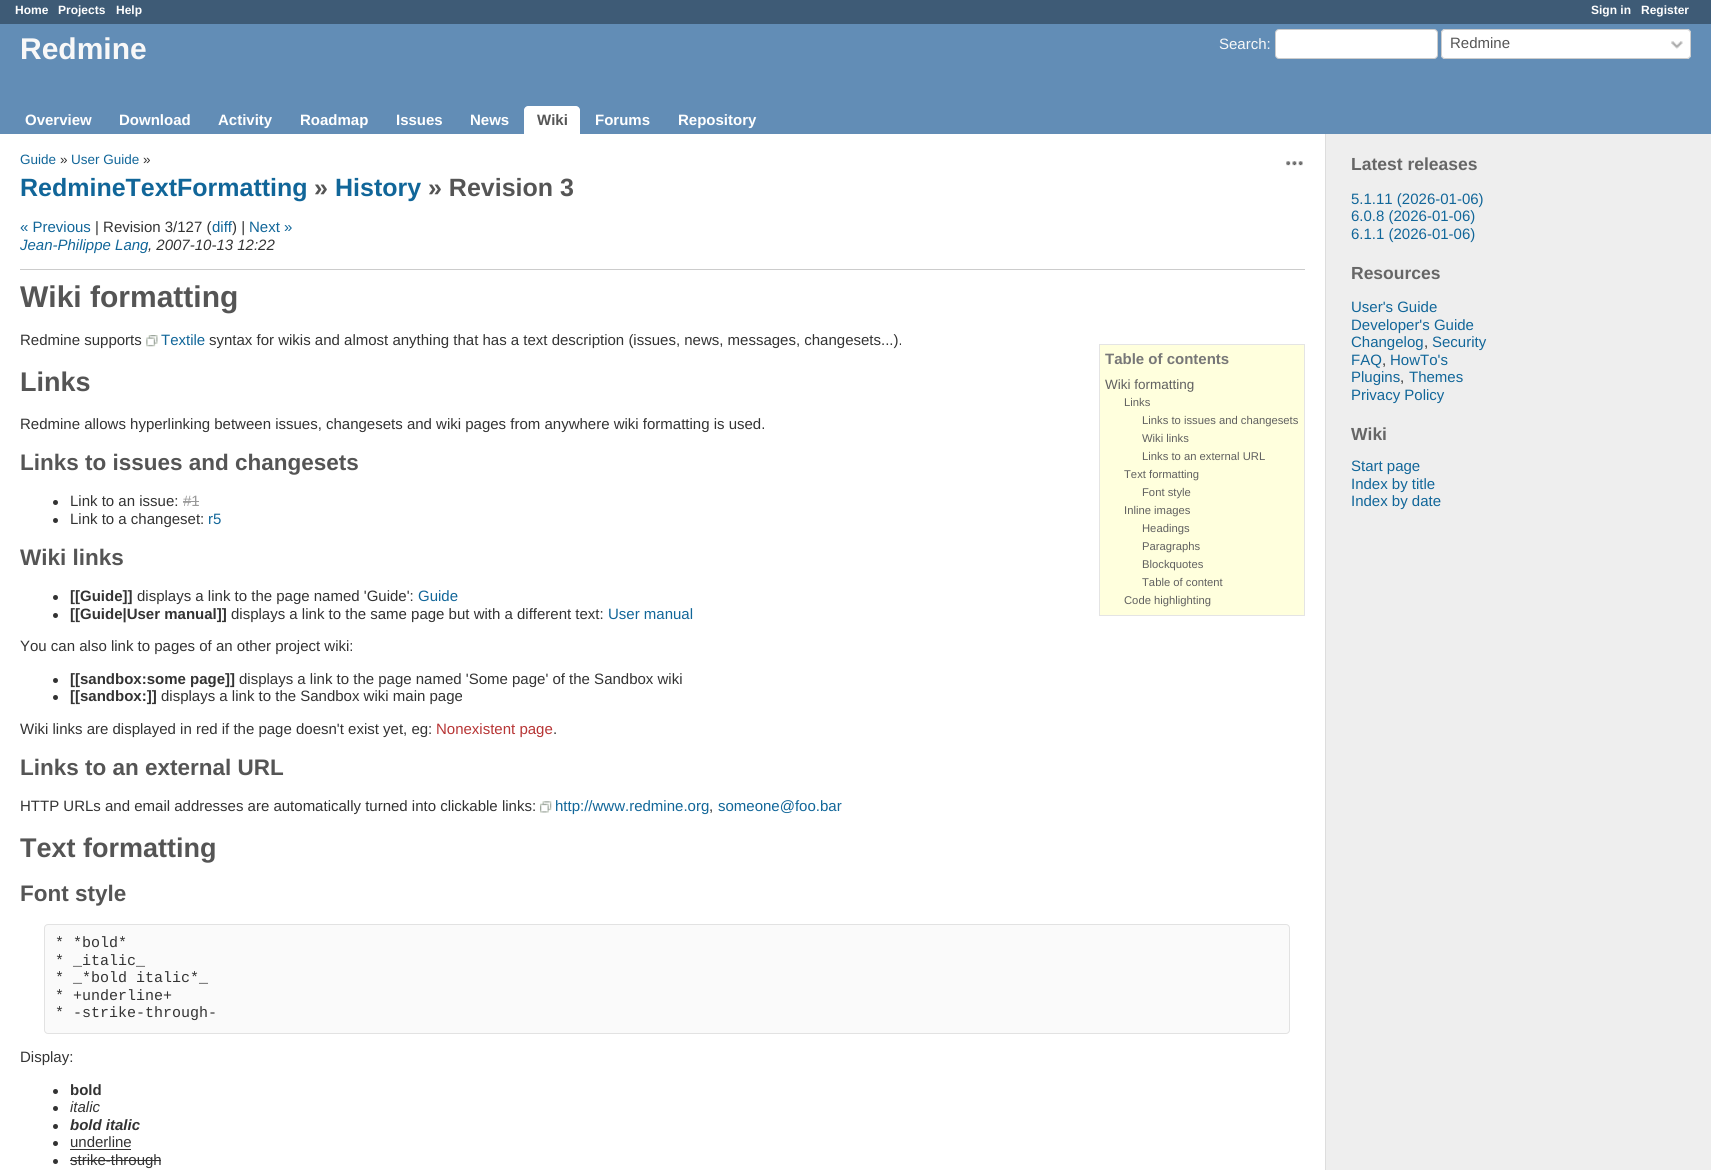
import math
import cairo

surface = cairo.ImageSurface(cairo.Format.RGB24, 1711, 1170)
ctx = cairo.Context(surface)
options = cairo.FontOptions()
options.set_hint_metrics(cairo.HintMetrics.OFF)
options.set_hint_style(cairo.HintStyle.NONE)
ctx.set_font_options(options)
ctx.set_miter_limit(4)


def ink(r, g, b):
    ctx.set_source_rgb(r / 255, g / 255, b / 255)


def write(x, y, s, family, size, color, bold=False, italic=False):
    ctx.select_font_face(family, cairo.FontSlant.ITALIC if italic else cairo.FontSlant.NORMAL, cairo.FontWeight.BOLD if bold else cairo.FontWeight.NORMAL)
    ctx.set_font_size(size)
    ink(*color)
    ctx.move_to(x, y)
    ctx.show_text(s)


def block(x, y, w, h, *color):
    ink(*color)
    ctx.rectangle(x, y, w, h)
    ctx.fill()


def round_path(x, y, w, h, r):
    ctx.new_sub_path()
    for i, (u, v) in enumerate([(x + w - r, y + h - r), (x + r, y + h - r), (x + r, y + r), (x + w - r, y + r)]):
        ctx.arc(u, v, r, i * math.pi / 2, (i + 1) * math.pi / 2)
    ctx.close_path()


def paste(path, x, y, w, h):
    ctx.save()
    ctx.set_source_surface(cairo.ImageSurface.create_from_png(path), x, y)
    ctx.rectangle(x, y, w, h)
    ctx.fill()
    ctx.restore()


s1 = dict(family="Liberation Sans", size=12, color=(255, 255, 255), bold=True)
s2 = dict(family="Liberation Sans", size=30, color=(248, 248, 248), bold=True)
s3 = dict(family="Liberation Sans", size=15, color=(248, 248, 248))
s4 = dict(family="Liberation Sans", size=15, color=(85, 85, 85))
s5 = dict(family="Liberation Sans", size=15, color=(255, 255, 255), bold=True)
s6 = dict(family="Liberation Sans", size=15, color=(85, 85, 85), bold=True)
s7 = dict(family="Liberation Sans", size=13.5, color=(17, 102, 153))
s8 = dict(family="Liberation Sans", size=13.5, color=(51, 51, 51))
s9 = dict(family="Liberation Sans", size=25, color=(17, 102, 153), bold=True)
s10 = dict(family="Liberation Sans", size=25, color=(85, 85, 85), bold=True)
s11 = dict(family="Liberation Sans", size=15, color=(17, 102, 153))
s12 = dict(family="Liberation Sans", size=15, color=(51, 51, 51))
s13 = dict(family="Liberation Sans", size=15, color=(17, 102, 153), italic=True)
s14 = dict(family="Liberation Sans", size=15, color=(51, 51, 51), italic=True)
s15 = dict(family="Liberation Sans", size=30, color=(85, 85, 85), bold=True)
s16 = dict(family="Liberation Sans", size=27, color=(85, 85, 85), bold=True)
s17 = dict(family="Liberation Sans", size=15, color=(119, 119, 119), bold=True)
s18 = dict(family="Liberation Sans", size=13.5, color=(96, 96, 96))
s19 = dict(family="Liberation Sans", size=11.25, color=(96, 96, 96))
s20 = dict(family="Liberation Sans", size=22.5, color=(85, 85, 85), bold=True)
s21 = dict(family="Liberation Sans", size=15, color=(153, 153, 153))
s22 = dict(family="Liberation Sans", size=15, color=(51, 51, 51), bold=True)
s23 = dict(family="Liberation Sans", size=15, color=(183, 53, 53))
s24 = dict(family="Liberation Mono", size=15, color=(51, 51, 51))
s25 = dict(family="Liberation Sans", size=15, color=(51, 51, 51), bold=True, italic=True)
s26 = dict(family="Liberation Sans", size=17.5, color=(102, 102, 102), bold=True)

ink(255, 255, 255)
ctx.paint()
block(0, 0, 1711, 24, 62, 91, 118)
write(15, 14, "Home", **s1)
write(58, 14, "Projects", **s1)
write(116, 14, "Help", **s1)
write(1591, 14, "Sign in", **s1)
write(1641, 14, "Register", **s1)
block(0, 24, 1711, 110, 98, 141, 182)
write(20, 59, "Redmine", **s2)
write(1219, 49, "Search:", **s3)
ink(255, 255, 255)
round_path(1275.5, 29.5, 162, 29, 3.5)
ctx.fill_preserve()
ink(204, 204, 204)
ctx.set_line_width(1)
ctx.stroke()
ink(255, 255, 255)
round_path(1441, 29, 250, 30, 4)
ctx.fill()
paste("pic1.png", 1671, 41, 12, 8)
round_path(1441.5, 29.5, 249, 29, 3.5)
ink(204, 204, 204)
ctx.stroke()
write(1450, 48, "Redmine", **s4)
write(25, 125, "Overview", **s5)
write(119, 125, "Download", **s5)
write(218, 125, "Activity", **s5)
write(300, 125, "Roadmap", **s5)
write(396, 125, "Issues", **s5)
write(470, 125, "News", **s5)
ctx.new_path()
ctx.move_to(528, 106)
ctx.line_to(576, 106)
ctx.curve_to(578, 106, 580, 108, 580, 110)
ctx.line_to(580, 134)
ctx.line_to(524, 134)
ctx.line_to(524, 110)
ctx.curve_to(524, 108, 526, 106, 528, 106)
ctx.close_path()
ctx.fill()
write(537, 125, "Wiki", **s6)
write(595, 125, "Forums", **s5)
write(678, 125, "Repository", **s5)
write(20, 164, "Guide", **s7)
write(60, 164, "»", **s8)
write(71, 164, "User Guide", **s7)
write(143, 164, "»", **s8)
paste("pic2.png", 1286, 161, 17, 5)
write(20, 196, "RedmineTextFormatting", **s9)
write(314, 196, "»", **s10)
write(335, 196, "History", **s9)
write(428, 196, "» Revision 3", **s10)
write(20, 232, "« Previous", **s11)
write(95, 232, "| Revision 3/127 (", **s12)
write(212, 232, "diff", **s11)
write(232, 232, ") |", **s12)
write(249, 232, "Next »", **s11)
write(20, 250, "Jean-Philippe Lang", **s13)
write(148, 250, ", 2007-10-13 12:22", **s14)
block(20, 269, 1285, 1, 204, 204, 204)
write(20, 307, "Wiki formatting", **s15)
write(20, 345, "Redmine supports", **s12)
paste("pic3.png", 146, 335, 12, 12)
write(161, 345, "Textile", **s11)
write(209, 345, "syntax for wikis and almost anything that has a text description (issues, news, messages, changesets...).", **s12)
write(20, 391, "Links", **s16)
ink(255, 255, 221)
ctx.rectangle(1099.5, 344.5, 205, 271)
ctx.fill_preserve()
ink(228, 228, 228)
ctx.stroke()
write(1105, 364, "Table of contents", **s17)
write(1105, 389, "Wiki formatting", **s18)
write(1124, 406, "Links", **s19)
write(1142, 424, "Links to issues and changesets", **s19)
write(1142, 442, "Wiki links", **s19)
write(1142, 460, "Links to an external URL", **s19)
write(1124, 478, "Text formatting", **s19)
write(1142, 496, "Font style", **s19)
write(1124, 514, "Inline images", **s19)
write(1142, 532, "Headings", **s19)
write(1142, 550, "Paragraphs", **s19)
write(1142, 568, "Blockquotes", **s19)
write(1142, 586, "Table of content", **s19)
write(1124, 604, "Code highlighting", **s19)
write(20, 429, "Redmine allows hyperlinking between issues, changesets and wiki pages from anywhere wiki formatting is used.", **s12)
write(20, 470, "Links to issues and changesets", **s20)
ink(51, 51, 51)
ctx.new_path()
ctx.arc(55.5, 502.5, 2.5, 0, 2 * math.pi)
ctx.fill()
write(70, 506, "Link to an issue:", **s12)
write(183, 506, "#1", **s21)
block(183, 501, 16, 1, 153, 153, 153)
ink(51, 51, 51)
ctx.new_path()
ctx.arc(55.5, 520.5, 2.5, 0, 2 * math.pi)
ctx.fill()
write(70, 524, "Link to a changeset:", **s12)
write(208, 524, "r5", **s11)
write(20, 565, "Wiki links", **s20)
ink(51, 51, 51)
ctx.new_path()
ctx.arc(55.5, 597.5, 2.5, 0, 2 * math.pi)
ctx.fill()
write(70, 601, "[[Guide]]", **s22)
write(137, 601, "displays a link to the page named 'Guide':", **s12)
write(418, 601, "Guide", **s11)
ink(51, 51, 51)
ctx.new_path()
ctx.arc(55.5, 615.5, 2.5, 0, 2 * math.pi)
ctx.fill()
write(70, 619, "[[Guide|User manual]]", **s22)
write(231, 619, "displays a link to the same page but with a different text:", **s12)
write(608, 619, "User manual", **s11)
write(20, 651, "You can also link to pages of an other project wiki:", **s12)
ctx.new_path()
ctx.arc(55.5, 680.5, 2.5, 0, 2 * math.pi)
ctx.fill()
write(70, 684, "[[sandbox:some page]]", **s22)
write(239, 684, "displays a link to the page named 'Some page' of the Sandbox wiki", **s12)
ctx.new_path()
ctx.arc(55.5, 697.5, 2.5, 0, 2 * math.pi)
ctx.fill()
write(70, 701, "[[sandbox:]]", **s22)
write(161, 701, "displays a link to the Sandbox wiki main page", **s12)
write(20, 734, "Wiki links are displayed in red if the page doesn't exist yet, eg:", **s12)
write(436, 734, "Nonexistent page", **s23)
write(553, 734, ".", **s12)
write(20, 775, "Links to an external URL", **s20)
write(20, 811, "HTTP URLs and email addresses are automatically turned into clickable links:", **s12)
paste("pic4.png", 540, 801, 12, 12)
write(555, 811, "http://www.redmine.org", **s11)
write(709, 811, ",", **s12)
write(718, 811, "someone@foo.bar", **s11)
write(20, 857, "Text formatting", **s16)
write(20, 901, "Font style", **s20)
ink(250, 250, 250)
round_path(44.5, 924.5, 1245, 109, 3.5)
ctx.fill_preserve()
ink(226, 226, 226)
ctx.stroke()
write(55, 947, "* *bold*", **s24)
write(55, 965, "* _italic_", **s24)
write(55, 982, "* _*bold italic*_", **s24)
write(55, 1000, "* +underline+", **s24)
write(55, 1017, "* -strike-through-", **s24)
write(20, 1062, "Display:", **s12)
ctx.new_path()
ctx.arc(55.5, 1091.5, 2.5, 0, 2 * math.pi)
ctx.fill()
write(70, 1095, "bold", **s22)
ctx.new_path()
ctx.arc(55.5, 1108.5, 2.5, 0, 2 * math.pi)
ctx.fill()
write(70, 1112, "italic", **s14)
ctx.new_path()
ctx.arc(55.5, 1126.5, 2.5, 0, 2 * math.pi)
ctx.fill()
write(70, 1130, "bold italic", **s25)
ctx.new_path()
ctx.arc(55.5, 1143.5, 2.5, 0, 2 * math.pi)
ctx.fill()
write(70, 1147, "underline", **s12)
block(70, 1149, 61, 1, 51, 51, 51)
ctx.new_path()
ctx.arc(55.5, 1161.5, 2.5, 0, 2 * math.pi)
ctx.fill()
write(70, 1165, "strike-through", **s12)
block(70, 1160, 91, 1, 51, 51, 51)
block(1326, 134, 385, 1036, 238, 238, 238)
block(1325, 134, 1, 1036, 221, 221, 221)
write(1351, 170, "Latest releases", **s26)
write(1351, 204, "5.1.11 (2026-01-06)", **s11)
write(1351, 221, "6.0.8 (2026-01-06)", **s11)
write(1351, 239, "6.1.1 (2026-01-06)", **s11)
write(1351, 279, "Resources", **s26)
write(1351, 312, "User's Guide", **s11)
write(1351, 330, "Developer's Guide", **s11)
write(1351, 347, "Changelog", **s11)
write(1424, 347, ",", **s12)
write(1432, 347, "Security", **s11)
write(1351, 365, "FAQ", **s11)
write(1382, 365, ",", **s12)
write(1390, 365, "HowTo's", **s11)
write(1351, 382, "Plugins", **s11)
write(1400, 382, ",", **s12)
write(1409, 382, "Themes", **s11)
write(1351, 400, "Privacy Policy", **s11)
write(1351, 440, "Wiki", **s26)
write(1351, 471, "Start page", **s11)
write(1351, 489, "Index by title", **s11)
write(1351, 506, "Index by date", **s11)
surface.write_to_png("screenshot.png")
